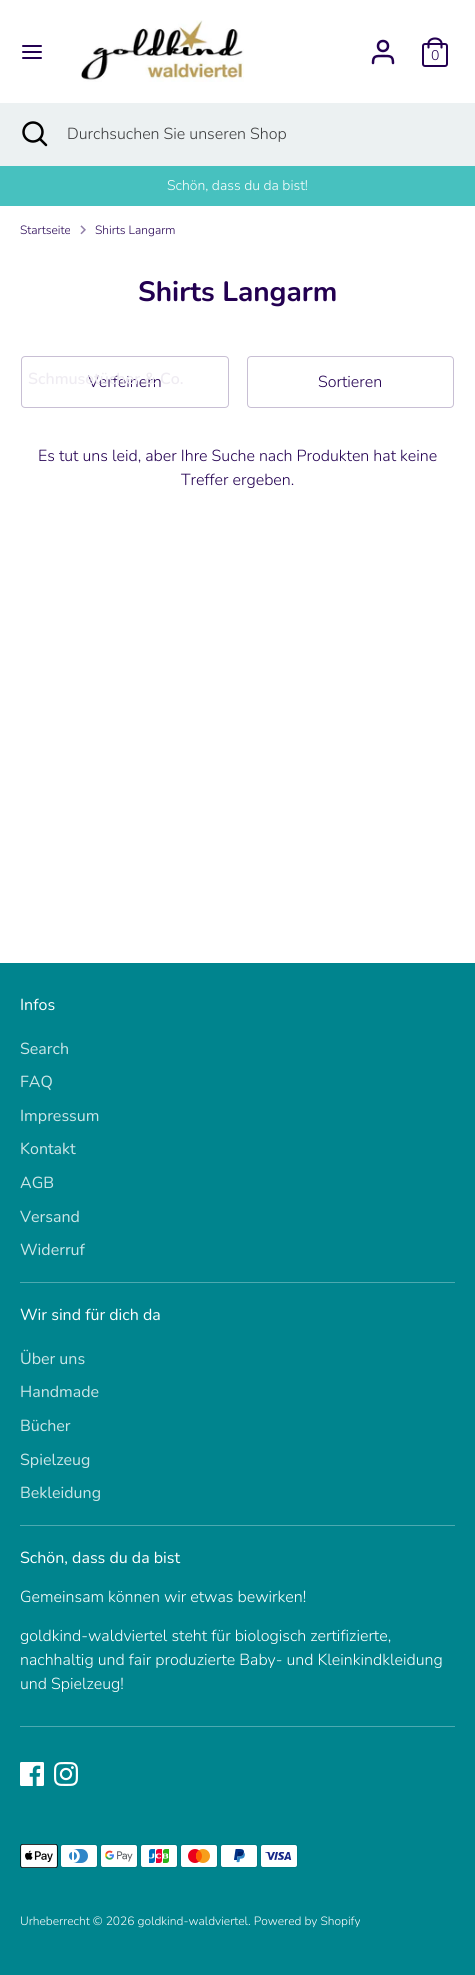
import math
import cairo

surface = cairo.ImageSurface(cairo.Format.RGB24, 475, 1975)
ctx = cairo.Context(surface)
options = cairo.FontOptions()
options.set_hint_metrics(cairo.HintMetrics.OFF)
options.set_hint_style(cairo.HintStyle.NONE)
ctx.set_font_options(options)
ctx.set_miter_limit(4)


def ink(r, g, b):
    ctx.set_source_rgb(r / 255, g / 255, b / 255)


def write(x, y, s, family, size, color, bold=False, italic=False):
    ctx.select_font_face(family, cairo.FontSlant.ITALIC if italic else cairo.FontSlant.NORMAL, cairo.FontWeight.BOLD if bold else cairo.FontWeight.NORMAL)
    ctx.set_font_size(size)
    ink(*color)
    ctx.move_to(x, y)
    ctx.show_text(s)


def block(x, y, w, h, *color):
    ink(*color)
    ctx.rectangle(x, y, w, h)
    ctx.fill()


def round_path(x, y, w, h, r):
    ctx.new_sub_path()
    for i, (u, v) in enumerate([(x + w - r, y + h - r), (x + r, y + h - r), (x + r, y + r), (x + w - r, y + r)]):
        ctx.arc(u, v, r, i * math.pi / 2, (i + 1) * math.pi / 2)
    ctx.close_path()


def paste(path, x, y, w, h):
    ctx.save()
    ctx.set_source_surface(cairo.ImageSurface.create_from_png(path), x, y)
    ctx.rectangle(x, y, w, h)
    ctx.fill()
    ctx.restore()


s1 = dict(family="Nunito Light", size=14, color=(35, 0, 81))
s2 = dict(family="Nunito Light", size=16, color=(59, 60, 61))
s3 = dict(family="Nunito Light", size=14, color=(255, 255, 255))
s4 = dict(family="Nunito Light", size=16, color=(35, 0, 81))
s5 = dict(family="Nunito SemiBold", size=16, color=(239, 236, 242))
s6 = dict(family="Nunito Light", size=12, color=(35, 0, 81))
s7 = dict(family="Nunito", size=28, color=(35, 0, 81), bold=True)
s8 = dict(family="Nunito", size=16, color=(255, 255, 255))
s9 = dict(family="Nunito", size=16, color=(204, 230, 232))
s10 = dict(family="Nunito Light", size=16, color=(255, 255, 255))
s11 = dict(family="Nunito Light", size=12, color=(255, 255, 255))

ink(255, 255, 255)
ctx.paint()
ctx.new_path()
ctx.move_to(23, 52)
ctx.line_to(41, 52)
ctx.move_to(23, 46)
ctx.line_to(41, 46)
ctx.move_to(23, 58)
ctx.line_to(41, 58)
ink(35, 0, 81)
ctx.set_line_cap(cairo.LineCap.ROUND)
ctx.stroke()
paste("pic1.png", 81, 20, 163, 62)
ctx.new_path()
ctx.move_to(393, 63)
ctx.curve_to(393, 55.5, 390, 56, 383, 56)
ctx.curve_to(376, 56, 373, 55.5, 373, 63)
ctx.set_line_width(2.5)
ctx.stroke()
ctx.arc(383, 46, 5, 0, 2 * math.pi)
ctx.set_line_cap(cairo.LineCap.BUTT)
ctx.stroke()
round_path(423, 44, 24, 22, 2)
ctx.set_line_width(2)
ctx.stroke()
ctx.new_path()
ctx.move_to(428.5, 47.5)
ctx.line_to(428.5, 43.5)
ctx.curve_to(428.5, 40.5, 431.5, 38.5, 435, 38.5)
ctx.curve_to(438.5, 38.5, 441.5, 40.5, 441.5, 43.5)
ctx.line_to(441.5, 47.5)
ctx.set_line_width(2.1)
ctx.set_line_cap(cairo.LineCap.ROUND)
ctx.stroke()
write(431, 60, "0", **s1)
block(0, 103, 475, 63, 236, 241, 242)
ctx.new_path()
ctx.arc(33, 132, 9.5, 0, 2 * math.pi)
ink(0, 0, 0)
ctx.set_line_width(2.5)
ctx.set_line_cap(cairo.LineCap.BUTT)
ctx.stroke()
ctx.new_path()
ctx.move_to(46, 145)
ctx.line_to(40, 139)
ctx.set_line_cap(cairo.LineCap.ROUND)
ctx.stroke()
write(67, 139, "Durchsuchen Sie unseren Shop", **s2)
block(0, 166, 475, 40, 71, 193, 191)
write(167, 190, "Schön, dass du da bist!", **s3)
round_path(21.5, 356.5, 207, 51, 3.5)
ink(200, 191, 212)
ctx.set_line_width(1)
ctx.set_line_cap(cairo.LineCap.BUTT)
ctx.stroke()
write(88, 387, "Verfeinern", **s4)
write(28, 384, "Schmusetücher & Co.", **s5)
write(20, 234, "Startseite", **s6)
paste("pic2.png", 80, 225, 6, 10)
write(95, 234, "Shirts Langarm", **s6)
write(138, 301, "Shirts Langarm", **s7)
round_path(247.5, 356.5, 206, 51, 3.5)
ink(200, 191, 212)
ctx.stroke()
write(318, 387, "Sortieren", **s4)
write(38, 461, "Es tut uns leid, aber Ihre Suche nach Produkten hat keine", **s4)
write(181, 485, "Treffer ergeben.", **s4)
block(0, 963, 475, 1012, 0, 132, 142)
block(20, 1282, 435, 1, 77, 169, 176)
write(20, 1010, "Infos", **s8)
write(20, 1054, "Search", **s9)
write(20, 1087, "FAQ", **s9)
write(20, 1121, "Impressum", **s9)
write(20, 1154, "Kontakt", **s9)
write(20, 1188, "AGB", **s9)
write(20, 1222, "Versand", **s9)
write(20, 1255, "Widerruf", **s9)
block(20, 1525, 435, 1, 77, 169, 176)
write(20, 1320, "Wir sind für dich da", **s8)
write(20, 1364, "Über uns", **s9)
write(20, 1397, "Handmade", **s9)
write(20, 1431, "Bücher", **s9)
write(20, 1465, "Spielzeug", **s9)
write(20, 1498, "Bekleidung", **s9)
block(20, 1726, 435, 1, 77, 169, 176)
write(20, 1563, "Schön, dass du da bist", **s8)
write(20, 1602, "Gemeinsam können wir etwas bewirken!", **s10)
write(20, 1641, "goldkind-waldviertel steht für biologisch zertifizierte,", **s10)
write(20, 1665, "nachhaltig und fair produzierte Baby- und Kleinkindkleidung", **s10)
write(20, 1689, "und Spielzeug!", **s10)
paste("pic3.png", 20, 1762, 24, 24)
paste("pic4.png", 54, 1762, 24, 24)
paste("pic5.png", 20, 1844, 38, 24)
paste("pic6.png", 60, 1844, 38, 24)
paste("pic7.png", 100, 1844, 38, 24)
paste("pic8.png", 140, 1844, 38, 24)
paste("pic9.png", 180, 1844, 38, 24)
paste("pic10.png", 220, 1844, 38, 24)
paste("pic11.png", 260, 1844, 38, 24)
write(20, 1925, "Urheberrecht © 2026 goldkind-waldviertel. Powered by Shopify", **s11)
surface.write_to_png("screenshot.png")
